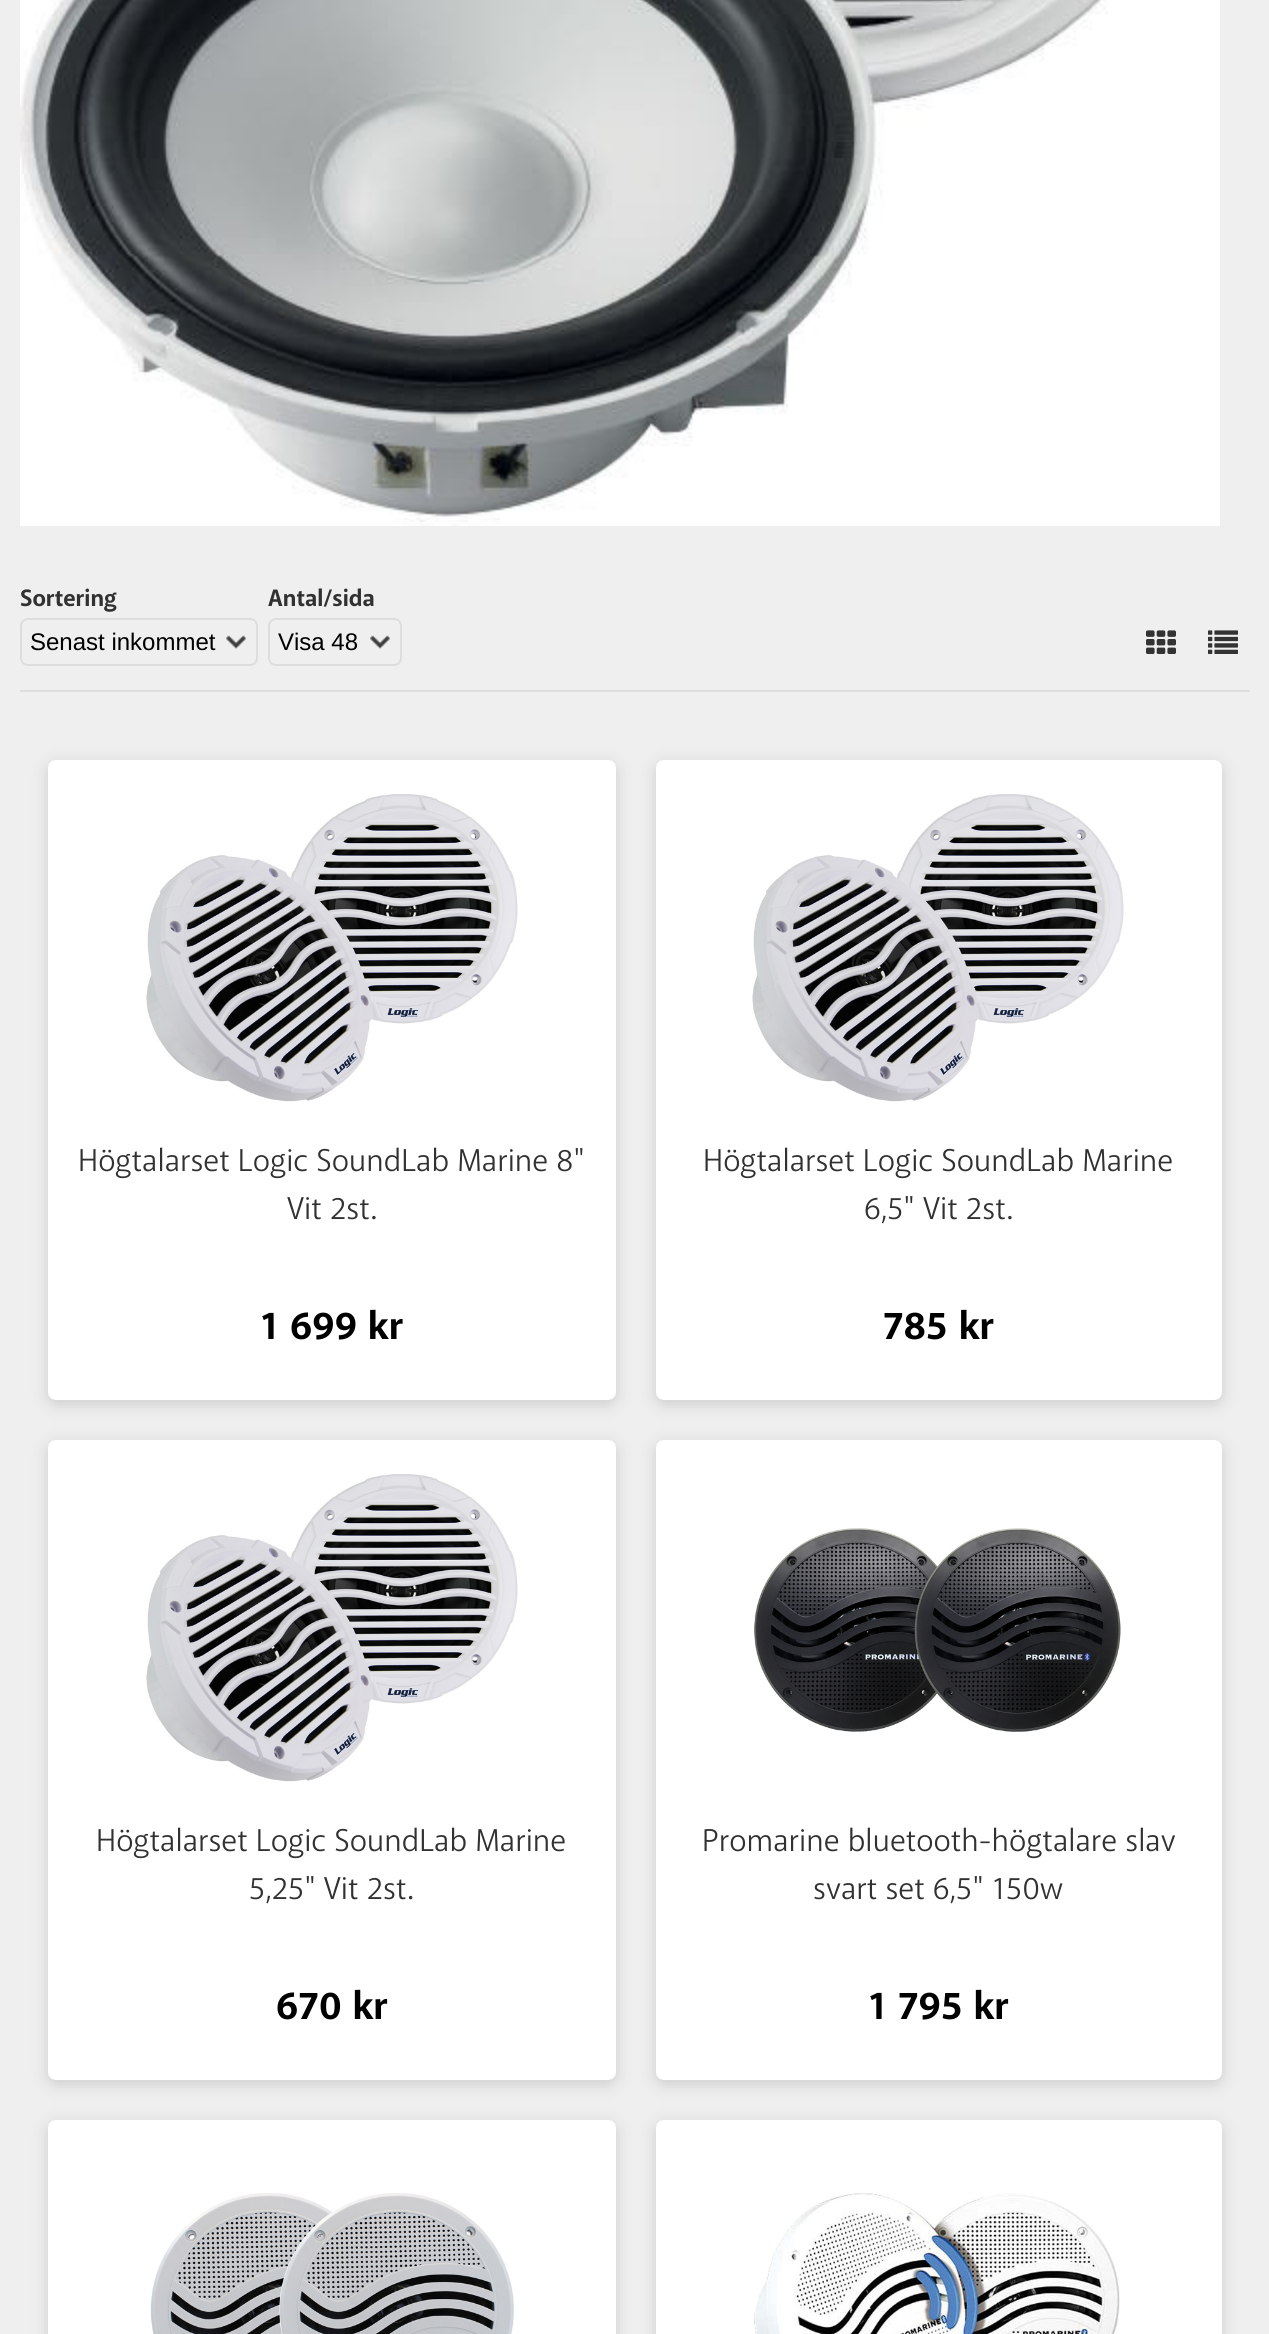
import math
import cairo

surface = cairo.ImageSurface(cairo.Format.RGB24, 1269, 2334)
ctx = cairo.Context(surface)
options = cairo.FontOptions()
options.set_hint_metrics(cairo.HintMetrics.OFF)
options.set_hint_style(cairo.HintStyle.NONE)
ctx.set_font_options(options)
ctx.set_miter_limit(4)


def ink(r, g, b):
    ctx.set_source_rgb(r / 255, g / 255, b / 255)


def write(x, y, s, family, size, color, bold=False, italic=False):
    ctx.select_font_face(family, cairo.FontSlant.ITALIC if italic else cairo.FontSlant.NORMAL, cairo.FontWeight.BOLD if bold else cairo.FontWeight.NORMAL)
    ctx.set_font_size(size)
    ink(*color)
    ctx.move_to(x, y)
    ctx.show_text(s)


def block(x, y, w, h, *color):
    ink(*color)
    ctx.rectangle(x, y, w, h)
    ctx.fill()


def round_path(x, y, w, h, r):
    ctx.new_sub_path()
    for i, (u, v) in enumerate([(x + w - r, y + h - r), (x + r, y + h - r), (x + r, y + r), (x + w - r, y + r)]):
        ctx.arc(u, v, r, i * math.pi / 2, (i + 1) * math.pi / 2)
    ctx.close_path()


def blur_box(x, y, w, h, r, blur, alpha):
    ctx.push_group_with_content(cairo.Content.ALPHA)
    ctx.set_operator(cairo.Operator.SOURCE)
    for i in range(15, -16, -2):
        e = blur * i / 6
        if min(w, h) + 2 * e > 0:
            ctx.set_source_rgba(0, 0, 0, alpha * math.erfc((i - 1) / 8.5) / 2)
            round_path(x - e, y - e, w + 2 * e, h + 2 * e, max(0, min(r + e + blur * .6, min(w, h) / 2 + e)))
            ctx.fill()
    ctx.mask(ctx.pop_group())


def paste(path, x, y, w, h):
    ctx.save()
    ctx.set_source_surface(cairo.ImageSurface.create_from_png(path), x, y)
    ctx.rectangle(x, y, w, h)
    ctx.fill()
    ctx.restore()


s1 = dict(family="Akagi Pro", size=24, color=(49, 49, 49), bold=True)
s2 = dict(family="Liberation Sans", size=24, color=(0, 0, 0))
s3 = dict(family="Akagi Pro", size=32, color=(49, 49, 49))
s4 = dict(family="Akagi Pro", size=40, color=(0, 0, 0), bold=True)

ink(239, 239, 239)
ctx.paint()
paste("pic1.png", 20, 0, 1200, 526)
block(20, 690, 1230, 2, 221, 221, 221)
write(20, 606, "Sortering", **s1)
paste("pic2.png", 226, 635, 20, 14)
round_path(21, 619, 236, 46, 7)
ink(221, 221, 221)
ctx.stroke()
write(30, 650, "Senast inkommet", **s2)
write(268, 606, "Antal/sida", **s1)
paste("pic3.png", 370, 635, 20, 14)
round_path(269, 619, 132, 46, 7)
ink(221, 221, 221)
ctx.stroke()
write(278, 650, "Visa 48", **s2)
paste("pic4.png", 1146, 630, 30, 24)
paste("pic5.png", 1208, 630, 30, 24)
ink(60, 60, 60)
blur_box(48, 764, 568, 640, 8, 8, 0.2)
ink(255, 255, 255)
round_path(48, 760, 568, 640, 8)
ctx.fill()
paste("pic6.png", 146, 794, 372, 308)
write(78, 1171, "Högtalarset Logic SoundLab Marine 8\"", **s3)
write(287, 1219, "Vit 2st.", **s3)
write(260, 1339, "1 699 kr", **s4)
ink(60, 60, 60)
blur_box(656, 764, 566, 640, 8, 8, 0.2)
ink(255, 255, 255)
round_path(656, 760, 566, 640, 8)
ctx.fill()
paste("pic7.png", 752, 794, 372, 308)
write(703, 1171, "Högtalarset Logic SoundLab Marine", **s3)
write(864, 1219, "6,5\" Vit 2st.", **s3)
write(883, 1339, "785 kr", **s4)
ink(60, 60, 60)
blur_box(48, 1444, 568, 640, 8, 8, 0.2)
ink(255, 255, 255)
round_path(48, 1440, 568, 640, 8)
ctx.fill()
paste("pic6.png", 146, 1474, 372, 308)
write(96, 1851, "Högtalarset Logic SoundLab Marine", **s3)
write(249, 1899, "5,25\" Vit 2st.", **s3)
write(276, 2019, "670 kr", **s4)
ink(60, 60, 60)
blur_box(656, 1444, 566, 640, 8, 8, 0.2)
ink(255, 255, 255)
round_path(656, 1440, 566, 640, 8)
ctx.fill()
paste("pic8.png", 754, 1528, 367, 204)
write(702, 1851, "Promarine bluetooth-högtalare slav", **s3)
write(813, 1899, "svart set 6,5\" 150w", **s3)
write(868, 2019, "1 795 kr", **s4)
ink(60, 60, 60)
blur_box(48, 2124, 568, 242, 8, 8, 0.2)
ink(255, 255, 255)
round_path(48, 2120, 568, 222, 8)
ctx.fill()
paste("pic9.png", 150, 2193, 364, 141)
ink(60, 60, 60)
blur_box(656, 2124, 566, 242, 8, 8, 0.2)
ink(255, 255, 255)
round_path(656, 2120, 566, 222, 8)
ctx.fill()
paste("pic10.png", 754, 2193, 366, 141)
surface.write_to_png("screenshot.png")
